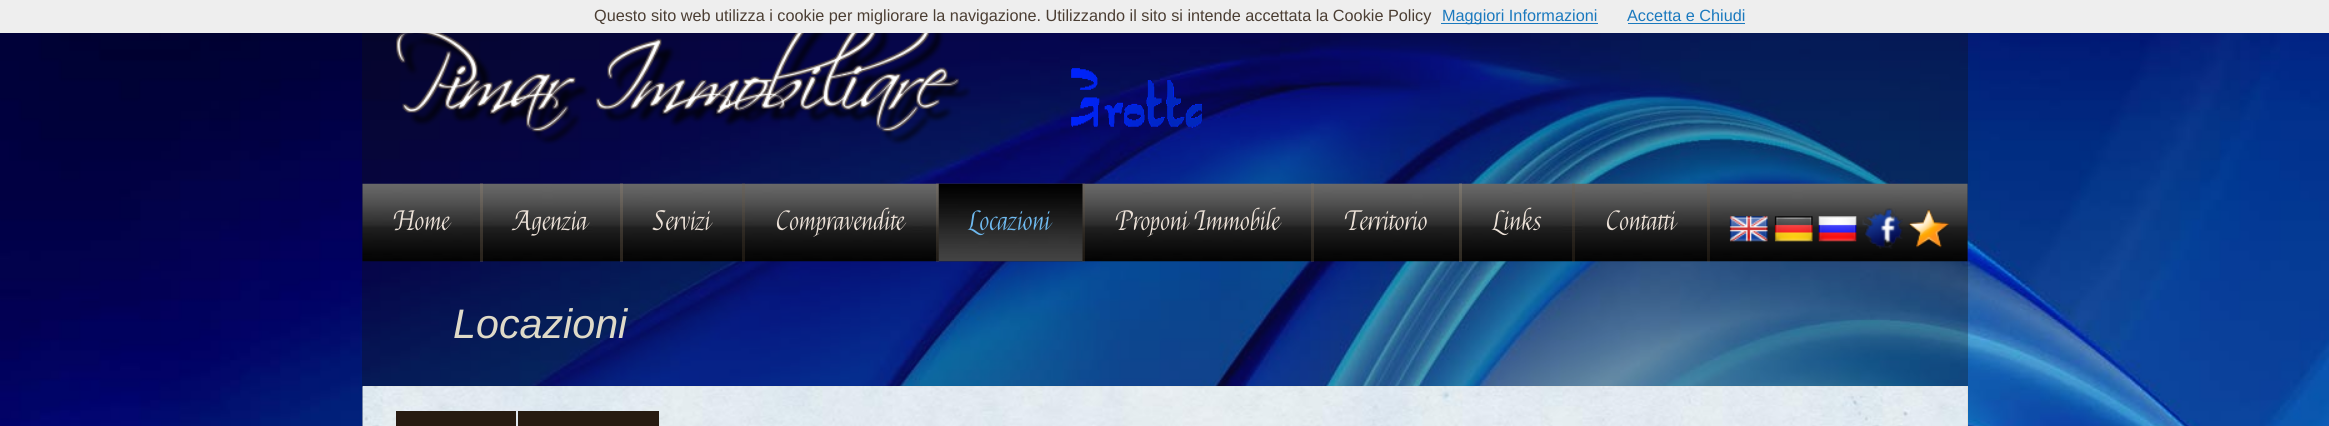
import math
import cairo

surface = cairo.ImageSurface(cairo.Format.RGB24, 2329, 426)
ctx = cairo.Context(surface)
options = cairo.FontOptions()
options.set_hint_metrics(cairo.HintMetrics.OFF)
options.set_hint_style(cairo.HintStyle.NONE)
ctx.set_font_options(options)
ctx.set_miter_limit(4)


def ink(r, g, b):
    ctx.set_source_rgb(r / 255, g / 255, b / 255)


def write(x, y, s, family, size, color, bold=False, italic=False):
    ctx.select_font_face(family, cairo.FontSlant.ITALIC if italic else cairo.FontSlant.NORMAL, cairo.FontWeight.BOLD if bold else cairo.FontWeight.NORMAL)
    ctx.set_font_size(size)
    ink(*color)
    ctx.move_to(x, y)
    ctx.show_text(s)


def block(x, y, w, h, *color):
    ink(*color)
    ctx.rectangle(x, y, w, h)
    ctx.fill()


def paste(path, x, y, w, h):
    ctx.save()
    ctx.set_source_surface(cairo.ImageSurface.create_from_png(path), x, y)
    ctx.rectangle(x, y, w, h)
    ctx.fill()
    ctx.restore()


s1 = dict(family="Liberation Sans", size=16.25, color=(75, 62, 51))
s2 = dict(family="Liberation Sans", size=16.25, color=(26, 121, 190))
s3 = dict(family="Felipa", size=26.25, color=(236, 225, 215))
s4 = dict(family="Felipa", size=26.25, color=(110, 185, 239))
s5 = dict(family="Liberation Sans", size=41.25, color=(223, 218, 200), italic=True)

ink(255, 255, 255)
ctx.paint()
paste("pic1.png", 0, 33, 2329, 393)
block(0, 0, 2329, 33, 238, 238, 238)
write(594, 21, "Questo sito web utilizza i cookie per migliorare la navigazione. Utilizzando il sito si intende accettata la Cookie Policy", **s1)
block(1441, 23, 157, 1, 26, 121, 190)
write(1442, 21, "Maggiori Informazioni", **s2)
write(1627, 21, "Accetta e Chiudi", **s2)
block(1628, 23, 117, 1, 26, 121, 190)
ctx.set_source_rgba(0.078, 0.067, 0.039, 0.3)
ctx.rectangle(362, 33, 1606, 393)
ctx.fill()
paste("pic2.png", 396, 33, 575, 112)
paste("pic3.png", 1071, 68, 131, 60)
paste("pic4.png", 362, 183, 1606, 79)
ctx.set_source_rgba(0.675, 0.58, 0.455, 0.22)
ctx.rectangle(480, 183, 3, 79)
ctx.fill()
write(394, 230, "Home", **s3)
ctx.set_source_rgba(0.675, 0.58, 0.455, 0.22)
ctx.rectangle(620, 183, 3, 79)
ctx.fill()
write(514, 230, "Agenzia", **s3)
ctx.set_source_rgba(0.455, 0.365, 0.255, 0.22)
ctx.rectangle(742, 183, 3, 79)
ctx.fill()
write(653, 230, "Servizi", **s3)
ctx.set_source_rgba(0.58, 0.49, 0.38, 0.22)
ctx.rectangle(936, 183, 3, 79)
ctx.fill()
write(776, 230, "Compravendite", **s3)
ctx.set_source_rgba(0.455, 0.365, 0.255, 0.22)
ctx.rectangle(1082, 183, 3, 79)
ctx.fill()
paste("pic5.png", 938, 183, 145, 79)
write(969, 230, "Locazioni", **s4)
ctx.set_source_rgba(0.58, 0.49, 0.38, 0.22)
ctx.rectangle(1311, 183, 3, 79)
ctx.fill()
write(1116, 230, "Proponi Immobile", **s3)
ctx.set_source_rgba(0.765, 0.675, 0.545, 0.22)
ctx.rectangle(1459, 183, 3, 79)
ctx.fill()
write(1345, 230, "Territorio", **s3)
ctx.set_source_rgba(0.455, 0.365, 0.255, 0.22)
ctx.rectangle(1572, 183, 3, 79)
ctx.fill()
write(1493, 230, "Links", **s3)
ctx.set_source_rgba(0.455, 0.365, 0.255, 0.22)
ctx.rectangle(1707, 183, 3, 79)
ctx.fill()
write(1606, 230, "Contatti", **s3)
paste("pic6.png", 1729, 216, 39, 26)
paste("pic7.png", 1774, 216, 39, 26)
paste("pic8.png", 1818, 216, 39, 26)
paste("pic9.png", 1862, 208, 41, 41)
paste("pic10.png", 1908, 209, 41, 39)
write(453, 338, "Locazioni", **s5)
block(363, 386, 1605, 40, 223, 218, 200)
paste("pic11.png", 362, 386, 1606, 40)
block(396, 411, 120, 15, 39, 27, 17)
block(518, 411, 141, 15, 39, 27, 17)
surface.write_to_png("screenshot.png")
